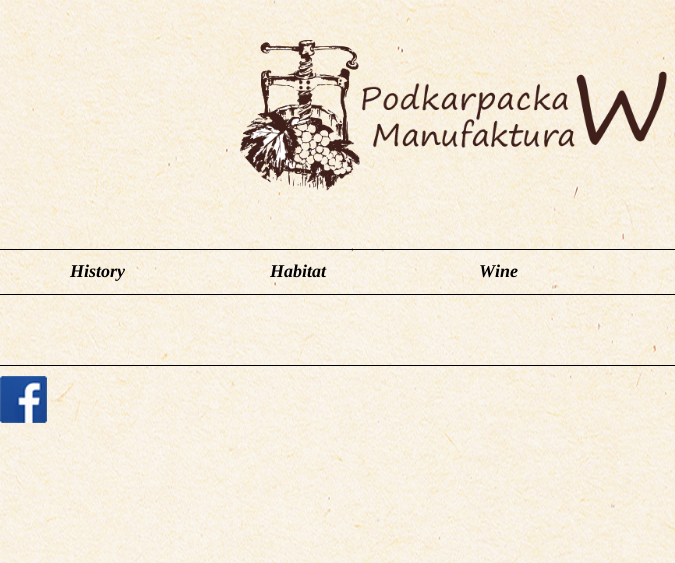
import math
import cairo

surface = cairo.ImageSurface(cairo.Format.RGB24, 675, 563)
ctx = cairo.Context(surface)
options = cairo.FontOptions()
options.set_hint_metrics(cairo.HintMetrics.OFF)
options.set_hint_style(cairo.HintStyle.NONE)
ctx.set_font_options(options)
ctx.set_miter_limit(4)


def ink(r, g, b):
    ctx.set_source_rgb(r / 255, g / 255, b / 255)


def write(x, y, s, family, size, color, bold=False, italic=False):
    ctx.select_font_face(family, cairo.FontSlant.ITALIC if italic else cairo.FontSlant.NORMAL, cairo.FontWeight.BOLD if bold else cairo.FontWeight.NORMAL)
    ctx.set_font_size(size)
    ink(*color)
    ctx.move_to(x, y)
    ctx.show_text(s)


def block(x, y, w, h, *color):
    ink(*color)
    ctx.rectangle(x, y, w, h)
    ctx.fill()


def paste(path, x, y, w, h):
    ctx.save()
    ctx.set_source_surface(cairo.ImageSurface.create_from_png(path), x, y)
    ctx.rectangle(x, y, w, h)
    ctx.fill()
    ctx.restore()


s1 = dict(family="Liberation Serif", size=18, color=(0, 0, 0), bold=True, italic=True)

ink(255, 255, 255)
ctx.paint()
paste("pic1.png", 0, 0, 675, 563)
paste("pic2.png", 240, 40, 435, 151)
block(0, 249, 675, 1, 0, 0, 0)
block(0, 294, 675, 1, 0, 0, 0)
write(70, 277, "History", **s1)
write(270, 277, "Habitat", **s1)
write(479, 277, "Wine", **s1)
block(0, 365, 675, 1, 0, 0, 0)
paste("pic3.png", 0, 376, 47, 47)
surface.write_to_png("screenshot.png")
